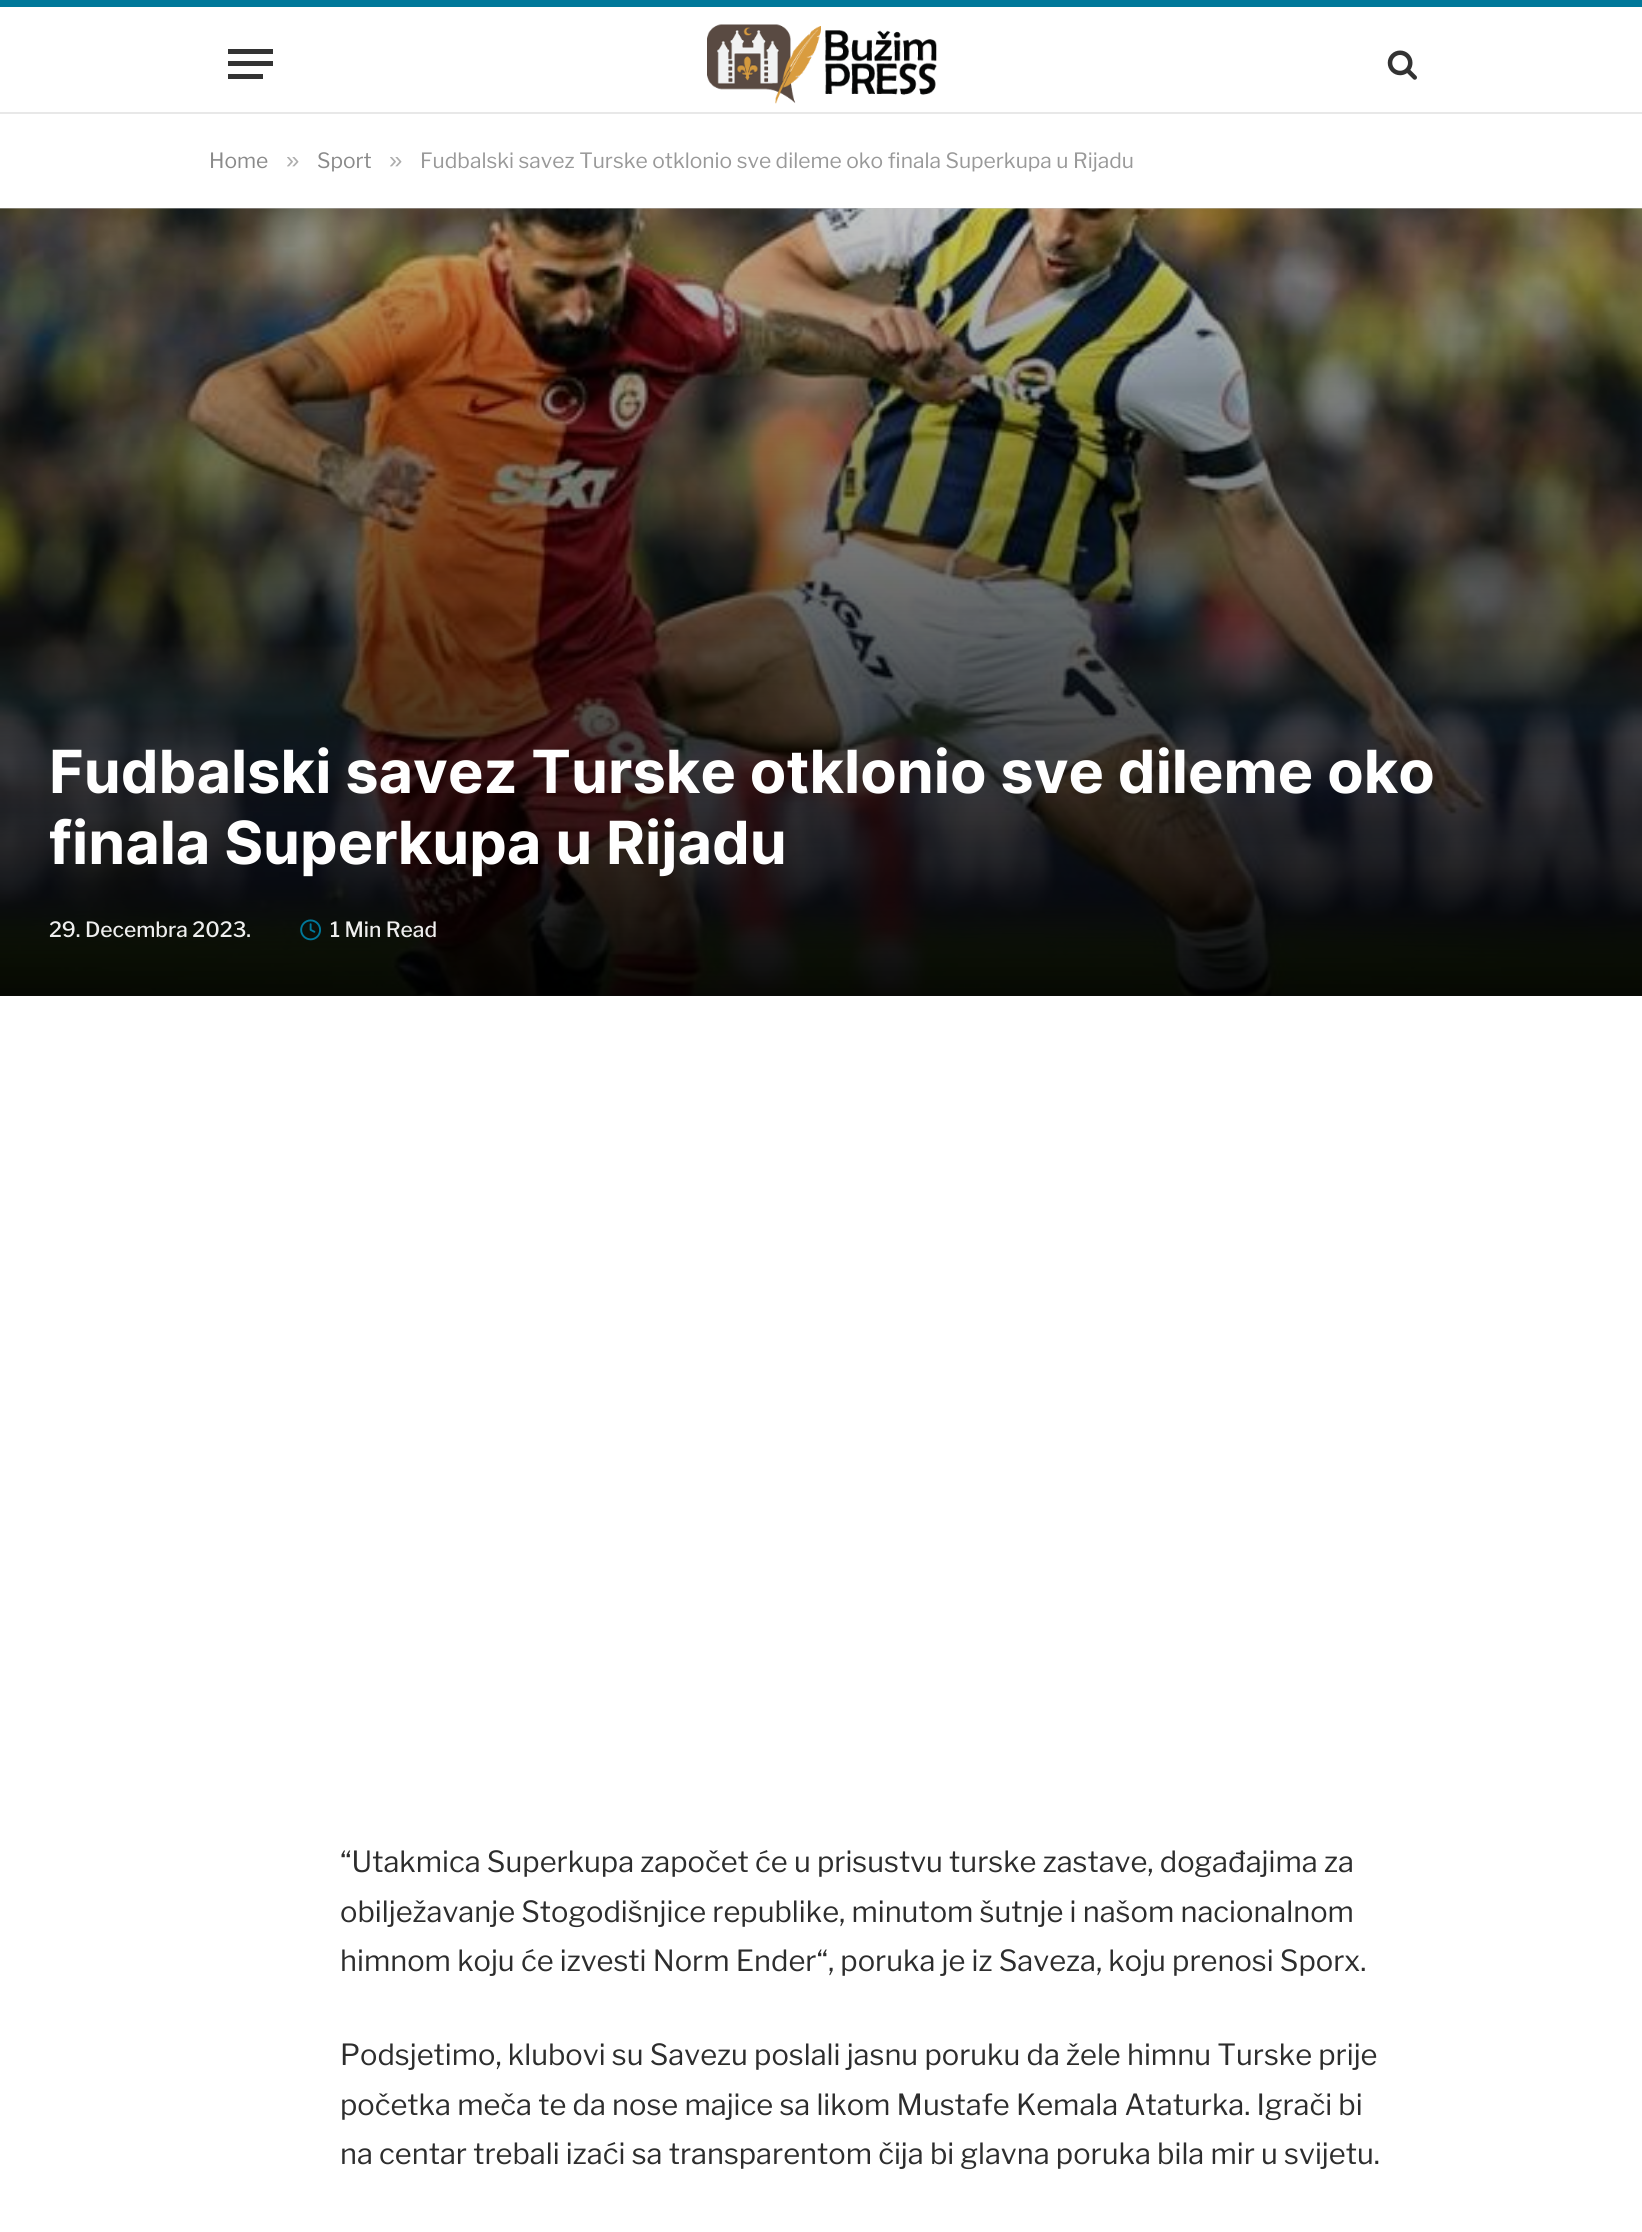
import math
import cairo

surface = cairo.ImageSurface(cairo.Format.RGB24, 1642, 2232)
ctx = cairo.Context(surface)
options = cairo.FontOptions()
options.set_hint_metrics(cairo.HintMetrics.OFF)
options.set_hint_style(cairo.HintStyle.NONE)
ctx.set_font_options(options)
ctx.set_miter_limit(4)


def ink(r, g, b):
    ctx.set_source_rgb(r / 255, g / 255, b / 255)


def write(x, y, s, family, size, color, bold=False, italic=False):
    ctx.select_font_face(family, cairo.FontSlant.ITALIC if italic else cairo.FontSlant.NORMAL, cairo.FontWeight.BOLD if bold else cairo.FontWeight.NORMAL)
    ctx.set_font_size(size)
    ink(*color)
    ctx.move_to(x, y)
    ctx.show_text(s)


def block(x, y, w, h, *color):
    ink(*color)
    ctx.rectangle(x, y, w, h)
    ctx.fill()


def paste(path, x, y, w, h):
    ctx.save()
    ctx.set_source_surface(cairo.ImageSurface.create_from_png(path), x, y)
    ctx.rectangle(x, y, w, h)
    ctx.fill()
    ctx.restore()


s1 = dict(family="Libre Franklin", size=21, color=(138, 138, 138))
s2 = dict(family="Liberation Sans", size=24, color=(173, 173, 173))
s3 = dict(family="Libre Franklin", size=21, color=(153, 153, 153))
s4 = dict(family="Inter", size=59.5, color=(255, 255, 255), bold=True)
s5 = dict(family="Libre Franklin Medium", size=21, color=(238, 238, 238))
s6 = dict(family="Libre Franklin", size=29.05, color=(45, 45, 45))

ink(255, 255, 255)
ctx.paint()
block(0, 0, 1642, 7, 0, 120, 154)
block(0, 112, 1642, 2, 232, 232, 232)
block(228, 74, 35, 5, 51, 51, 51)
block(228, 49, 45, 5, 51, 51, 51)
block(228, 61, 45, 5, 51, 51, 51)
paste("pic1.png", 707, 24, 230, 80)
paste("pic2.png", 1387, 50, 30, 30)
write(209, 168, "Home", **s1)
write(286, 168, "»", **s2)
write(317, 168, "Sport", **s1)
write(389, 168, "»", **s2)
write(420, 168, "Fudbalski savez Turske otklonio sve dileme oko finala Superkupa u Rijadu", **s3)
paste("pic3.png", 0, 208, 1642, 788)
gradient = cairo.LinearGradient(822, -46, 822, 996)
gradient.add_color_stop_rgba(0, 0, 0, 0, 0)
gradient.add_color_stop_rgba(1, 0, 0, 0, 0.95)
ctx.set_source(gradient)
ctx.rectangle(0, 208, 1642, 788)
ctx.fill()
write(49, 793, "Fudbalski savez Turske otklonio sve dileme oko", **s4)
write(49, 864, "finala Superkupa u Rijadu", **s4)
write(49, 937, "29. Decembra 2023.", **s5)
paste("pic4.png", 300, 919, 21, 22)
write(330, 937, "1 Min Read", **s5)
write(340, 1872, "“Utakmica Superkupa započet će u prisustvu turske zastave, događajima za", **s6)
write(340, 1922, "obilježavanje Stogodišnjice republike, minutom šutnje i našom nacionalnom", **s6)
write(340, 1971, "himnom koju će izvesti Norm Ender“, poruka je iz Saveza, koju prenosi Sporx.", **s6)
write(340, 2065, "Podsjetimo, klubovi su Savezu poslali jasnu poruku da žele himnu Turske prije", **s6)
write(340, 2115, "početka meča te da nose majice sa likom Mustafe Kemala Ataturka. Igrači bi", **s6)
write(340, 2164, "na centar trebali izaći sa transparentom čija bi glavna poruka bila mir u svijetu.", **s6)
surface.write_to_png("screenshot.png")
